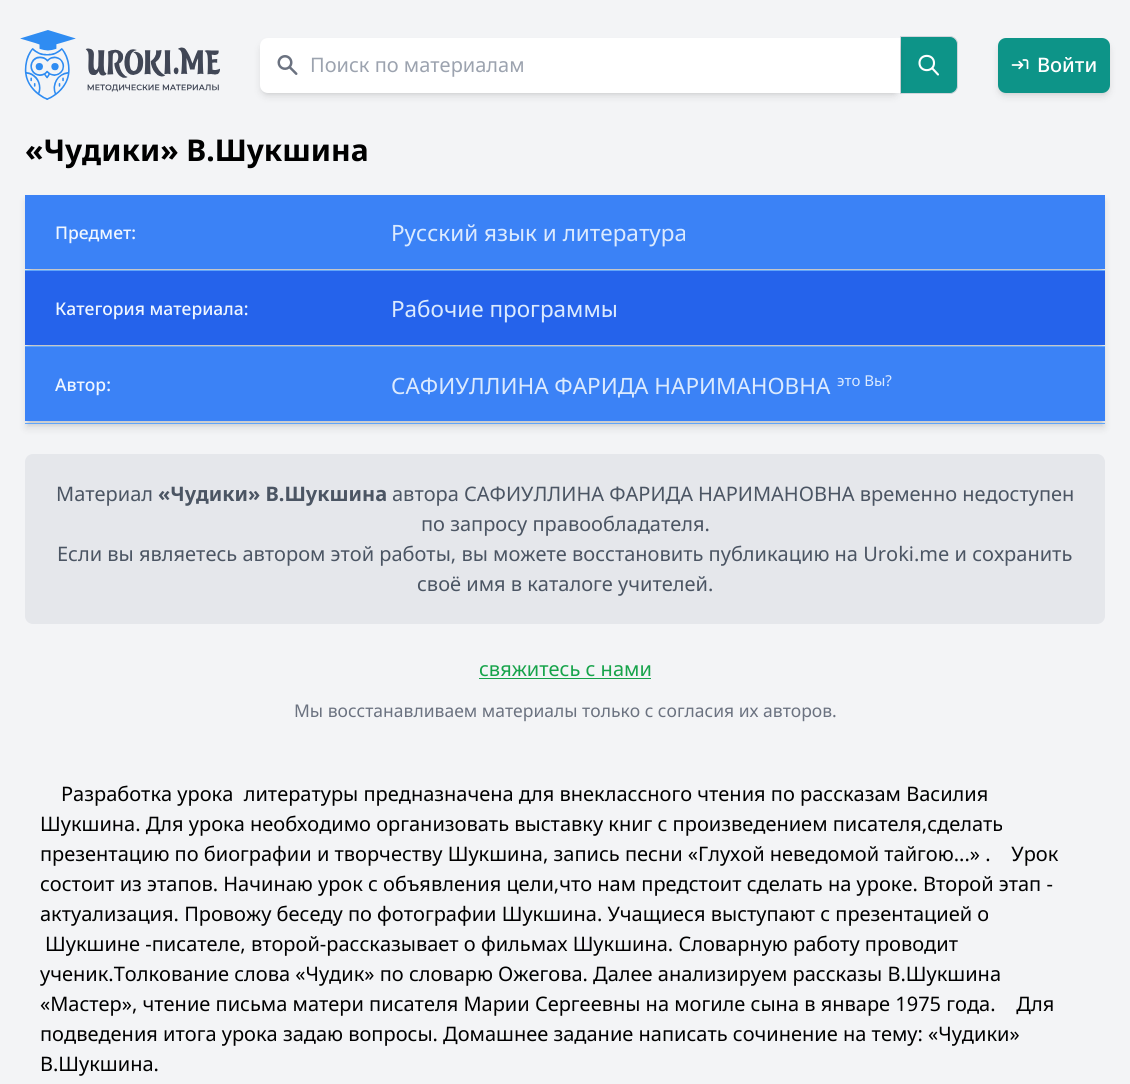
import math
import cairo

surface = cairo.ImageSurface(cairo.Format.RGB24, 1130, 1084)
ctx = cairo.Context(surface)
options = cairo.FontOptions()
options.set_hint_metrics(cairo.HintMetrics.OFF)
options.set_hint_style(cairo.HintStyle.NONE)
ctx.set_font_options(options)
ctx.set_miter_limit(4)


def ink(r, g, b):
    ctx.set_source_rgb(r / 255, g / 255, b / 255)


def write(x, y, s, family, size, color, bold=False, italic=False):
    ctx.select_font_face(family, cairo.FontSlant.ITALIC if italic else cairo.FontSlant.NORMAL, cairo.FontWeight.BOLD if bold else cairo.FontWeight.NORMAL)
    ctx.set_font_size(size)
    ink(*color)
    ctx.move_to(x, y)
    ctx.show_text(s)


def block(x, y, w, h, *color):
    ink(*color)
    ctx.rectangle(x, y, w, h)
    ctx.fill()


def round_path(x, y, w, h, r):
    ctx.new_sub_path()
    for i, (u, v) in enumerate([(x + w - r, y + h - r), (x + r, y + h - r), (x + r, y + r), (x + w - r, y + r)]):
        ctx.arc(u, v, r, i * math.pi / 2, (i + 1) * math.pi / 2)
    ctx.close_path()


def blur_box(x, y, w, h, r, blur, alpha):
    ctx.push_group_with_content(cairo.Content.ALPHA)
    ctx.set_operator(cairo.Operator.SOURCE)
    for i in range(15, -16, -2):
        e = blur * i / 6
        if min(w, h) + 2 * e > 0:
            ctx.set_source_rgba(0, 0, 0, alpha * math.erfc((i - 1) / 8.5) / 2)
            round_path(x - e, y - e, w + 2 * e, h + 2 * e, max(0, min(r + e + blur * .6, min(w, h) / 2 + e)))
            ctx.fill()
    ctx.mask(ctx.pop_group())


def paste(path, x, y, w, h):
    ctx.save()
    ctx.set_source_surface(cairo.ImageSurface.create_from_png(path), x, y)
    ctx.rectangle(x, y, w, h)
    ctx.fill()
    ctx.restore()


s1 = dict(family="Noto Sans", size=20, color=(156, 163, 175))
s2 = dict(family="Noto Sans Medium", size=20, color=(255, 255, 255))
s3 = dict(family="Noto Sans", size=30, color=(0, 0, 0), bold=True)
s4 = dict(family="Noto Sans Medium", size=17.5, color=(239, 246, 255))
s5 = dict(family="Noto Sans", size=22.5, color=(219, 234, 254))
s6 = dict(family="Noto Sans", size=15, color=(219, 234, 254))
s7 = dict(family="Noto Sans", size=20, color=(75, 85, 99))
s8 = dict(family="Noto Sans", size=20, color=(75, 85, 99), bold=True)
s9 = dict(family="Noto Sans", size=20, color=(22, 163, 74))
s10 = dict(family="Noto Sans", size=17.5, color=(107, 114, 128))
s11 = dict(family="Noto Sans", size=20, color=(0, 0, 0))

ink(243, 244, 246)
ctx.paint()
paste("pic1.png", 20, 30, 200, 70)
ink(13, 148, 136)
ctx.new_path()
ctx.move_to(900.5, 36.5)
ctx.line_to(950, 36.5)
ctx.curve_to(954, 36.5, 957.5, 40, 957.5, 44)
ctx.line_to(957.5, 86)
ctx.curve_to(957.5, 90, 954, 93.5, 950, 93.5)
ctx.line_to(900.5, 93.5)
ctx.close_path()
ctx.fill_preserve()
ink(209, 213, 219)
ctx.set_line_width(1)
ctx.stroke()
ink(0, 0, 0)
blur_box(263, 43, 635, 50, 5, 2.5, 0.1)
blur_box(261, 44, 638, 52, 6, 4, 0.1)
ink(255, 255, 255)
ctx.new_path()
ctx.move_to(268, 38)
ctx.line_to(900, 38)
ctx.line_to(900, 93)
ctx.line_to(268, 93)
ctx.curve_to(263.5, 93, 260, 89.5, 260, 85)
ctx.line_to(260, 46)
ctx.curve_to(260, 41.5, 263.5, 38, 268, 38)
ctx.close_path()
ctx.fill()
paste("pic2.png", 277, 55, 21, 20)
write(310, 72, "Поиск по материалам", **s1)
ctx.new_path()
ctx.move_to(938, 74.5)
ctx.line_to(932, 68)
ctx.move_to(934, 63)
ctx.curve_to(934, 72.5, 919.5, 72.5, 919.5, 63)
ctx.curve_to(919.5, 53.5, 934, 53.5, 934, 63)
ctx.close_path()
ink(255, 255, 255)
ctx.set_line_width(2.1)
ctx.set_line_cap(cairo.LineCap.ROUND)
ctx.set_line_join(cairo.LineJoin.ROUND)
ctx.stroke()
ink(0, 0, 0)
blur_box(1000, 43, 108, 50, 5, 2.5, 0.1)
blur_box(999, 44, 110, 52, 6, 4, 0.1)
ink(13, 148, 136)
round_path(998, 38, 112, 55, 8)
ctx.fill()
paste("pic3.png", 1011, 59, 18, 11)
write(1037, 72, "Войти", **s2)
write(25, 161, "«Чудики» В.Шукшина", **s3)
ink(0, 0, 0)
blur_box(28, 200, 1075, 224, 0, 2.5, 0.1)
blur_box(26, 201, 1078, 227, 0, 4, 0.1)
block(25, 195, 1080, 74, 59, 130, 246)
block(25, 270, 1080, 1, 96, 165, 250)
write(55, 239, "Предмет:", **s4)
write(391, 241, "Русский язык и литература", **s5)
block(25, 271, 1080, 74, 37, 99, 235)
block(25, 346, 1080, 1, 96, 165, 250)
write(55, 315, "Категория материала:", **s4)
write(391, 317, "Рабочие программы", **s5)
block(25, 347, 1080, 74, 59, 130, 246)
block(25, 423, 1080, 1, 96, 165, 250)
write(55, 391, "Автор:", **s4)
write(391, 394, "САФИУЛЛИНА ФАРИДА НАРИМАНОВНА", **s5)
write(837, 386, "это Вы?", **s6)
ink(229, 231, 235)
round_path(25, 454, 1080, 170, 8)
ctx.fill()
write(56, 501, "Материал", **s7)
write(158, 501, "«Чудики» В.Шукшина", **s8)
write(392, 501, "автора САФИУЛЛИНА ФАРИДА НАРИМАНОВНА временно недоступен", **s7)
write(421, 531, "по запросу правообладателя.", **s7)
write(57, 561, "Если вы являетесь автором этой работы, вы можете восстановить публикацию на Uroki.me и сохранить", **s7)
write(417, 591, "своё имя в каталоге учителей.", **s7)
write(479, 676, "свяжитесь с нами", **s9)
block(479, 678, 172, 1, 22, 163, 74)
write(294, 717, "Мы восстанавливаем материалы только с согласия их авторов.", **s10)
write(61, 801, "Разработка урока  литературы предназначена для внеклассного чтения по рассказам Василия", **s11)
write(40, 831, "Шукшина. Для урока необходимо организовать выставку книг с произведением писателя,сделать", **s11)
write(40, 861, "презентацию по биографии и творчеству Шукшина, запись песни «Глухой неведомой тайгою...» .    Урок", **s11)
write(40, 891, "состоит из этапов. Начинаю урок с объявления цели,что нам предстоит сделать на уроке. Второй этап -", **s11)
write(40, 921, "актуализация. Провожу беседу по фотографии Шукшина. Учащиеся выступают с презентацией о", **s11)
write(45, 951, "Шукшине -писателе, второй-рассказывает о фильмах Шукшина. Словарную работу проводит", **s11)
write(40, 981, "ученик.Толкование слова «Чудик» по словарю Ожегова. Далее анализируем рассказы В.Шукшина", **s11)
write(40, 1011, "«Мастер», чтение письма матери писателя Марии Сергеевны на могиле сына в январе 1975 года.    Для", **s11)
write(40, 1041, "подведения итога урока задаю вопросы. Домашнее задание написать сочинение на тему: «Чудики»", **s11)
write(40, 1071, "В.Шукшина.", **s11)
surface.write_to_png("screenshot.png")
